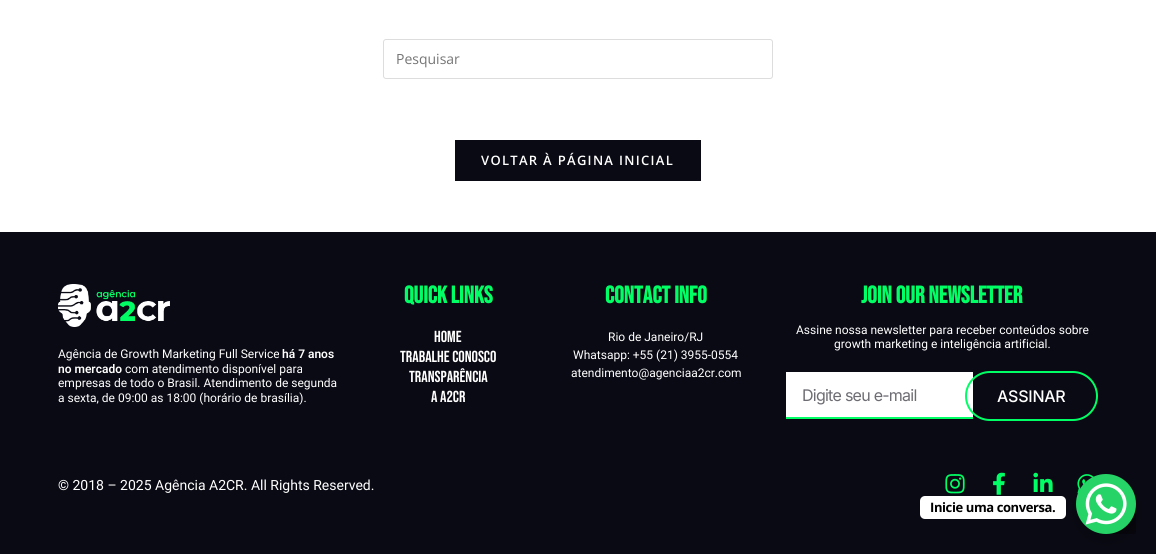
import math
import cairo

surface = cairo.ImageSurface(cairo.Format.RGB24, 1156, 554)
ctx = cairo.Context(surface)
options = cairo.FontOptions()
options.set_hint_metrics(cairo.HintMetrics.OFF)
options.set_hint_style(cairo.HintStyle.NONE)
ctx.set_font_options(options)
ctx.set_miter_limit(4)


def ink(r, g, b):
    ctx.set_source_rgb(r / 255, g / 255, b / 255)


def write(x, y, s, family, size, color, bold=False, italic=False):
    ctx.select_font_face(family, cairo.FontSlant.ITALIC if italic else cairo.FontSlant.NORMAL, cairo.FontWeight.BOLD if bold else cairo.FontWeight.NORMAL)
    ctx.set_font_size(size)
    ink(*color)
    ctx.move_to(x, y)
    ctx.show_text(s)


def write_spaced(x, y, s, letter, word):
    ctx.move_to(x, y)
    for ch in s:
        ctx.show_text(ch)
        ctx.rel_move_to(letter + word * (ch == ' '), 0)


def block(x, y, w, h, *color):
    ink(*color)
    ctx.rectangle(x, y, w, h)
    ctx.fill()


def round_path(x, y, w, h, r):
    ctx.new_sub_path()
    for i, (u, v) in enumerate([(x + w - r, y + h - r), (x + r, y + h - r), (x + r, y + r), (x + w - r, y + r)]):
        ctx.arc(u, v, r, i * math.pi / 2, (i + 1) * math.pi / 2)
    ctx.close_path()


def blur_box(x, y, w, h, r, blur, alpha):
    ctx.push_group_with_content(cairo.Content.ALPHA)
    ctx.set_operator(cairo.Operator.SOURCE)
    for i in range(15, -16, -2):
        e = blur * i / 6
        if min(w, h) + 2 * e > 0:
            ctx.set_source_rgba(0, 0, 0, alpha * math.erfc((i - 1) / 8.5) / 2)
            round_path(x - e, y - e, w + 2 * e, h + 2 * e, max(0, min(r + e + blur * .6, min(w, h) / 2 + e)))
            ctx.fill()
    ctx.mask(ctx.pop_group())


def paste(path, x, y, w, h):
    ctx.save()
    ctx.set_source_surface(cairo.ImageSurface.create_from_png(path), x, y)
    ctx.rectangle(x, y, w, h)
    ctx.fill()
    ctx.restore()


s1 = dict(family="Open Sans", size=14, color=(117, 117, 117))
s2 = dict(family="Roboto", size=12, color=(255, 255, 255))
s3 = dict(family="Roboto SemiBold", size=12, color=(255, 255, 255))
s4 = dict(family="Bebas Neue", size=24, color=(0, 255, 100), bold=True)
s5 = dict(family="Bebas Neue", size=16, color=(255, 255, 255))
s6 = dict(family="Roboto", size=14, color=(255, 255, 255))

ink(255, 255, 255)
ctx.paint()
round_path(383.5, 39.5, 389, 39, 2.5)
ink(221, 221, 221)
ctx.set_line_width(1)
ctx.stroke()
write(396, 64, "Pesquisar", **s1)
block(455, 140, 246, 41, 10, 10, 20)
ctx.select_font_face("Open Sans SemiBold")
ctx.set_font_size(13)
ink(255, 255, 255)
write_spaced(481, 165, "VOLTAR À PÁGINA INICIAL", 1.3, 0)
block(0, 232, 1156, 322, 10, 10, 20)
paste("pic1.png", 58, 284, 112, 43)
write(58, 358, "Agência de Growth Marketing Full Service", **s2)
write(282, 358, "há 7 anos", **s3)
write(58, 373, "no mercado", **s3)
write(125, 373, "com atendimento disponível para", **s2)
write(58, 387, "empresas de todo o Brasil. Atendimento de segunda", **s2)
write(58, 402, "a sexta, de 09:00 as 18:00 (horário de brasília).", **s2)
write(404, 303, "quick links", **s4)
write(434, 342, "Home", **s5)
write(400, 362, "Trabalhe Conosco", **s5)
write(409, 382, "Transparência", **s5)
write(431, 402, "A A2CR", **s5)
write(605, 303, "Contact Info", **s4)
write(608, 341, "Rio de Janeiro/RJ", **s2)
write(573, 359, "Whatsapp: +55 (21) 3955-0554", **s2)
write(571, 377, "atendimento@agenciaa2cr.com", **s2)
write(861, 303, "join our Newsletter", **s4)
write(796, 334, "Assine nossa newsletter para receber conteúdos sobre", **s2)
write(834, 348, "growth marketing e inteligência artificial.", **s2)
block(786, 372, 187, 45, 255, 255, 255)
block(786, 417, 187, 2, 0, 255, 100)
ctx.select_font_face("Inter")
ctx.set_font_size(16)
ink(108, 108, 114)
write_spaced(802, 401, "Digite seu e-mail", -0.75, 0)
round_path(966, 372, 131, 48, 24)
ink(0, 255, 100)
ctx.set_line_width(2)
ctx.stroke()
ctx.select_font_face("Inter Medium")
ink(255, 255, 255)
write_spaced(997, 402, "ASSINAR", -0.25, 0)
write(58, 490, "© 2018 – 2025 Agência A2CR. All Rights Reserved.", **s6)
paste("pic2.png", 945, 474, 20, 20)
paste("pic3.png", 993, 472, 12, 23)
paste("pic4.png", 1033, 472, 20, 20)
paste("pic5.png", 1077, 474, 17, 20)
ink(6, 6, 12)
round_path(1096, 494, 40, 40, 2)
ctx.fill()
ink(0, 0, 0)
blur_box(1074, 478, 64, 64, 32, 4, 0.15)
ink(255, 255, 255)
round_path(920, 496, 146, 23, 5)
ctx.fill()
ctx.select_font_face("Open Sans", cairo.FontSlant.NORMAL, cairo.FontWeight.BOLD)
ctx.set_font_size(13)
ink(0, 0, 0)
write_spaced(930, 512, "Inicie uma conversa.", -0.4, 0)
ink(37, 211, 102)
ctx.new_path()
ctx.arc(1106, 504, 30, 0, 2 * math.pi)
ctx.fill()
paste("pic6.png", 1085, 483, 42, 42)
surface.write_to_png("screenshot.png")
